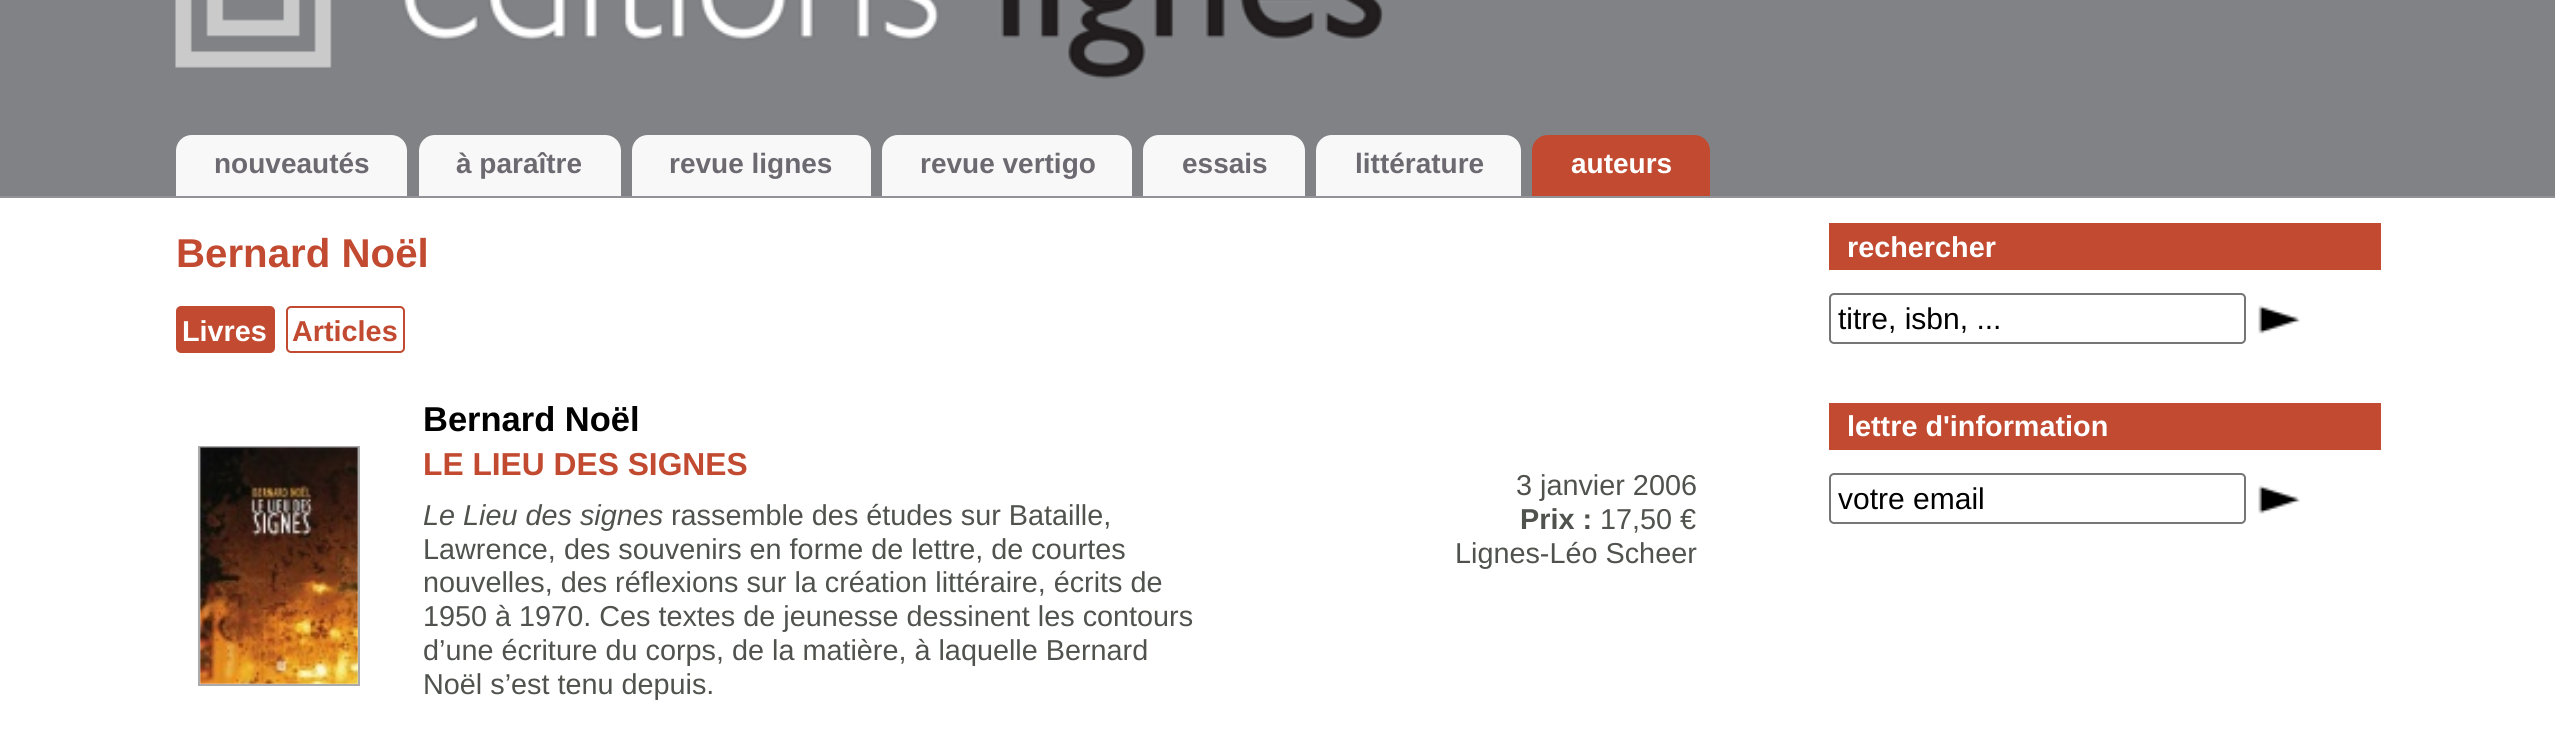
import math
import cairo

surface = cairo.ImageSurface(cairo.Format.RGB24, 2555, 743)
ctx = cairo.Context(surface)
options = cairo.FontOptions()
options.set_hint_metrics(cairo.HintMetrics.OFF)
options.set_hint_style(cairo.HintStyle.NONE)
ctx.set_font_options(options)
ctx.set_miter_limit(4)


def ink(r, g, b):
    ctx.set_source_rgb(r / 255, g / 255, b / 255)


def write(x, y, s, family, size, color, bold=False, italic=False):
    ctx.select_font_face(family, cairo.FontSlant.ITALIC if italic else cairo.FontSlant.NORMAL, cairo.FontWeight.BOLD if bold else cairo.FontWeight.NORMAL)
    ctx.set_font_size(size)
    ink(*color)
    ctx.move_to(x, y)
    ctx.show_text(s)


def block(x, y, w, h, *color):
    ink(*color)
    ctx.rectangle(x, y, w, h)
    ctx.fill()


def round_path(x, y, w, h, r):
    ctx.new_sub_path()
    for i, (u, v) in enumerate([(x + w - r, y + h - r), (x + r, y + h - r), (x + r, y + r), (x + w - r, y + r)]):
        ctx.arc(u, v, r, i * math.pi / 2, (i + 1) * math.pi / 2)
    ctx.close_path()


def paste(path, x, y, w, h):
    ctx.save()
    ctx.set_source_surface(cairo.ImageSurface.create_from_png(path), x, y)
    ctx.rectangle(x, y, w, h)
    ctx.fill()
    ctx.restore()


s1 = dict(family="Liberation Sans", size=28, color=(108, 105, 112), bold=True)
s2 = dict(family="Liberation Sans", size=28, color=(255, 255, 255), bold=True)
s3 = dict(family="Liberation Sans", size=40.25, color=(193, 74, 49), bold=True)
s4 = dict(family="Liberation Sans", size=28.8, color=(255, 255, 255), bold=True)
s5 = dict(family="Liberation Sans", size=28.8, color=(193, 74, 49), bold=True)
s6 = dict(family="Liberation Sans", size=34.5, color=(0, 0, 0), bold=True)
s7 = dict(family="Liberation Sans", size=31.75, color=(193, 74, 49), bold=True)
s8 = dict(family="Liberation Sans", size=28.8, color=(80, 83, 77), italic=True)
s9 = dict(family="Liberation Sans", size=28.8, color=(80, 83, 77))
s10 = dict(family="Liberation Sans", size=28.8, color=(80, 83, 77), bold=True)
s11 = dict(family="Liberation Sans", size=30, color=(0, 0, 0))

ink(255, 255, 255)
ctx.paint()
block(0, 0, 2555, 196, 128, 130, 133)
block(0, 196, 2555, 2, 147, 146, 150)
paste("pic1.png", 175, 0, 1208, 79)
ink(248, 248, 248)
ctx.new_path()
ctx.move_to(192, 135)
ctx.line_to(391, 135)
ctx.curve_to(400, 135, 407, 142, 407, 151)
ctx.line_to(407, 196)
ctx.line_to(176, 196)
ctx.line_to(176, 151)
ctx.curve_to(176, 142, 183, 135, 192, 135)
ctx.close_path()
ctx.fill()
write(214, 173, "nouveautés", **s1)
ink(248, 248, 248)
ctx.new_path()
ctx.move_to(435, 135)
ctx.line_to(605, 135)
ctx.curve_to(614, 135, 621, 142, 621, 151)
ctx.line_to(621, 196)
ctx.line_to(419, 196)
ctx.line_to(419, 151)
ctx.curve_to(419, 142, 426, 135, 435, 135)
ctx.close_path()
ctx.fill()
write(456, 173, "à paraître", **s1)
ink(248, 248, 248)
ctx.new_path()
ctx.move_to(648, 135)
ctx.line_to(855, 135)
ctx.curve_to(864, 135, 871, 142, 871, 151)
ctx.line_to(871, 196)
ctx.line_to(632, 196)
ctx.line_to(632, 151)
ctx.curve_to(632, 142, 639, 135, 648, 135)
ctx.close_path()
ctx.fill()
write(669, 173, "revue lignes", **s1)
ink(248, 248, 248)
ctx.new_path()
ctx.move_to(898, 135)
ctx.line_to(1116, 135)
ctx.curve_to(1125, 135, 1132, 142, 1132, 151)
ctx.line_to(1132, 196)
ctx.line_to(882, 196)
ctx.line_to(882, 151)
ctx.curve_to(882, 142, 889, 135, 898, 135)
ctx.close_path()
ctx.fill()
write(920, 173, "revue vertigo", **s1)
ink(248, 248, 248)
ctx.new_path()
ctx.move_to(1159, 135)
ctx.line_to(1289, 135)
ctx.curve_to(1298, 135, 1305, 142, 1305, 151)
ctx.line_to(1305, 196)
ctx.line_to(1143, 196)
ctx.line_to(1143, 151)
ctx.curve_to(1143, 142, 1150, 135, 1159, 135)
ctx.close_path()
ctx.fill()
write(1182, 173, "essais", **s1)
ink(248, 248, 248)
ctx.new_path()
ctx.move_to(1332, 135)
ctx.line_to(1505, 135)
ctx.curve_to(1514, 135, 1521, 142, 1521, 151)
ctx.line_to(1521, 196)
ctx.line_to(1316, 196)
ctx.line_to(1316, 151)
ctx.curve_to(1316, 142, 1323, 135, 1332, 135)
ctx.close_path()
ctx.fill()
write(1355, 173, "littérature", **s1)
ink(193, 74, 49)
ctx.new_path()
ctx.move_to(1548, 135)
ctx.line_to(1694, 135)
ctx.curve_to(1703, 135, 1710, 142, 1710, 151)
ctx.line_to(1710, 196)
ctx.line_to(1532, 196)
ctx.line_to(1532, 151)
ctx.curve_to(1532, 142, 1539, 135, 1548, 135)
ctx.close_path()
ctx.fill()
write(1571, 173, "auteurs", **s2)
write(176, 267, "Bernard Noël", **s3)
round_path(177, 307, 97, 45, 4)
ctx.fill_preserve()
ctx.stroke()
write(182, 341, "Livres", **s4)
round_path(287, 307, 117, 45, 4)
ink(193, 74, 49)
ctx.stroke()
write(292, 341, "Articles", **s5)
ctx.rectangle(199, 447, 160, 238)
ink(170, 170, 170)
ctx.stroke()
paste("pic2.png", 200, 447, 158, 237)
write(423, 431, "Bernard Noël", **s6)
write(423, 475, "LE LIEU DES SIGNES", **s7)
write(423, 525, "Le Lieu des signes", **s8)
write(671, 525, "rassemble des études sur Bataille,", **s9)
write(423, 559, "Lawrence, des souvenirs en forme de lettre, de courtes", **s9)
write(423, 592, "nouvelles, des réflexions sur la création littéraire, écrits de", **s9)
write(423, 626, "1950 à 1970. Ces textes de jeunesse dessinent les contours", **s9)
write(423, 660, "d’une écriture du corps, de la matière, à laquelle Bernard", **s9)
write(423, 694, "Noël s’est tenu depuis.", **s9)
write(1516, 495, "3 janvier 2006", **s9)
write(1520, 529, "Prix :", **s10)
write(1600, 529, "17,50 €", **s9)
write(1455, 563, "Lignes-Léo Scheer", **s9)
block(1829, 223, 552, 47, 193, 74, 49)
write(1847, 257, "rechercher", **s4)
round_path(1830, 294, 415, 49, 4)
ink(118, 118, 118)
ctx.stroke()
write(1838, 329, "titre, isbn, ...", **s11)
paste("pic3.png", 2258, 305, 42, 29)
block(1829, 403, 552, 47, 193, 74, 49)
write(1847, 436, "lettre d'information", **s4)
round_path(1830, 474, 415, 49, 4)
ink(118, 118, 118)
ctx.stroke()
write(1838, 509, "votre email", **s11)
paste("pic3.png", 2258, 485, 42, 29)
surface.write_to_png("screenshot.png")
